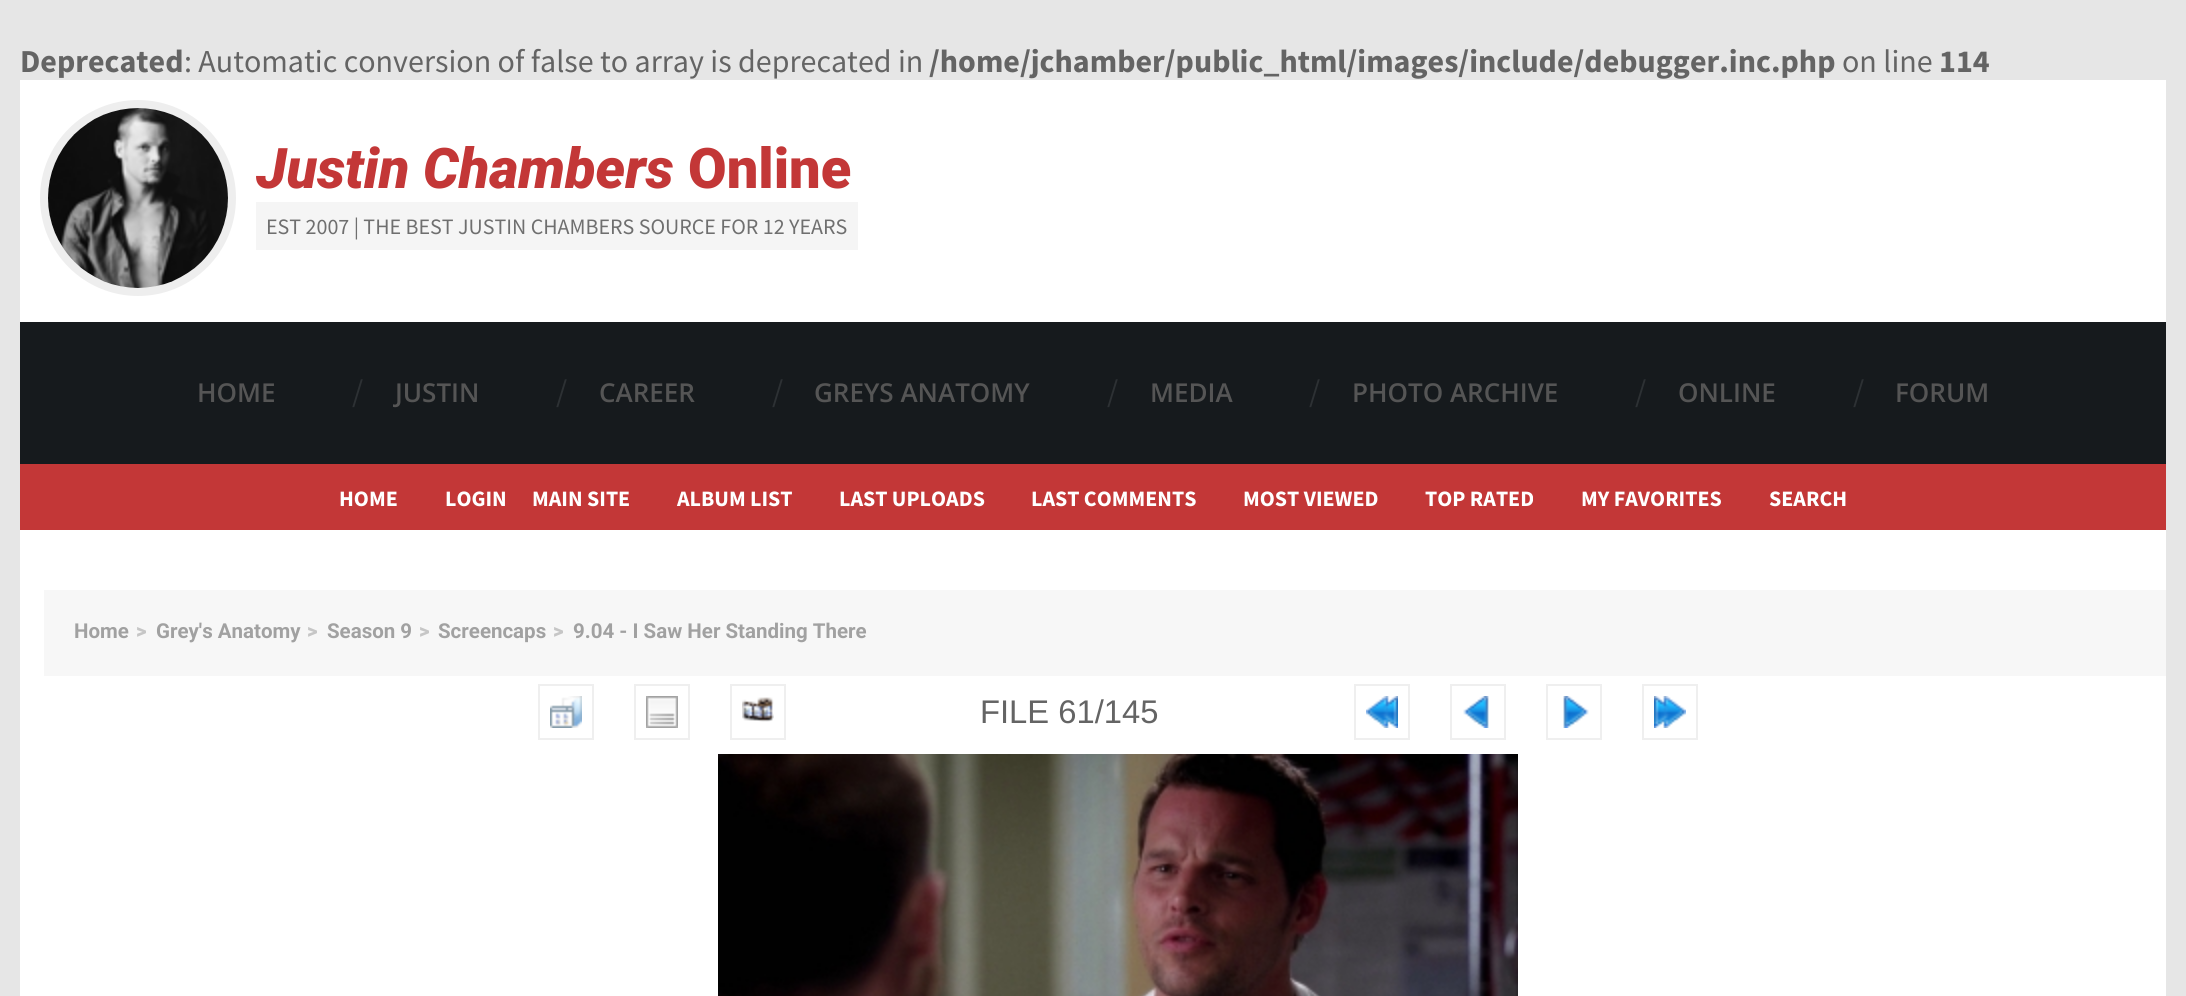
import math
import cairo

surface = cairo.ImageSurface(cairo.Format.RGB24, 2186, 996)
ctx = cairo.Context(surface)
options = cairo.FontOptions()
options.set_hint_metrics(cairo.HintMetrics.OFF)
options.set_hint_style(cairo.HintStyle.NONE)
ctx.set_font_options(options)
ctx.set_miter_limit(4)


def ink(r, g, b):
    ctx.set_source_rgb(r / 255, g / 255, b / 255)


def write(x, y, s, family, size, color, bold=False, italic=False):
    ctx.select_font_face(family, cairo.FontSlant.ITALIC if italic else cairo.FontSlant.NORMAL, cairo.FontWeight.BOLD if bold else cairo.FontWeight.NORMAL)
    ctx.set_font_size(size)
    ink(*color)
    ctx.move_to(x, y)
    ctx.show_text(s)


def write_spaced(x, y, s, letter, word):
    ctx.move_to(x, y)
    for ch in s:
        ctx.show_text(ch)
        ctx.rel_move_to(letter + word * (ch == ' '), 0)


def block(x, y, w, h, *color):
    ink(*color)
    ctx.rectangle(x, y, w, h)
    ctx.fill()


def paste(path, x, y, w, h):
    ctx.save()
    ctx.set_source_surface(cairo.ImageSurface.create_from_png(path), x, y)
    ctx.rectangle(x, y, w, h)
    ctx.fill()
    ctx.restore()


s1 = dict(family="Source Sans Pro", size=32, color=(100, 100, 100), bold=True)
s2 = dict(family="Source Sans Pro", size=32, color=(100, 100, 100))
s3 = dict(family="Roboto Black", size=56, color=(195, 55, 55), italic=True)
s4 = dict(family="Roboto Black", size=56, color=(195, 55, 55))
s5 = dict(family="Source Sans Pro", size=22, color=(111, 111, 111))
s6 = dict(family="Open Sans SemiBold", size=26, color=(85, 85, 85))
s7 = dict(family="Source Sans Pro", size=22, color=(255, 255, 255), bold=True)
s8 = dict(family="Roboto", size=20.5, color=(161, 161, 161), bold=True)
s9 = dict(family="Liberation Sans", size=32.75, color=(100, 100, 100))

ink(230, 230, 230)
ctx.paint()
write(20, 72, "Deprecated", **s1)
write(184, 72, ": Automatic conversion of false to array is deprecated in", **s2)
write(929, 72, "/home/jchamber/public_html/images/include/debugger.inc.php", **s1)
write(1842, 72, "on line", **s2)
write(1939, 72, "114", **s1)
block(20, 80, 2146, 916, 255, 255, 255)
ctx.new_path()
ctx.arc(138, 198, 94, 0, 2 * math.pi)
ink(238, 238, 238)
ctx.set_line_width(8)
ctx.stroke()
paste("pic1.png", 48, 108, 180, 180)
write(256, 188, "Justin Chambers", **s3)
write(688, 188, "Online", **s4)
block(256, 202, 602, 48, 245, 245, 245)
write(266, 234, "EST 2007 | THE BEST JUSTIN CHAMBERS SOURCE FOR 12 YEARS", **s5)
block(20, 322, 2146, 142, 22, 26, 29)
write(197, 402, "HOME", **s6)
ctx.select_font_face("Source Sans Pro")
ctx.set_font_size(32)
ink(45, 49, 52)
write_spaced(352, 402, "/", 2, 0)
write(395, 402, "JUSTIN", **s6)
ctx.select_font_face("Source Sans Pro")
ctx.set_font_size(32)
ink(45, 49, 52)
write_spaced(556, 402, "/", 2, 0)
write(599, 402, "CAREER", **s6)
ctx.select_font_face("Source Sans Pro")
ctx.set_font_size(32)
ink(45, 49, 52)
write_spaced(772, 402, "/", 2, 0)
write(814, 402, "GREYS ANATOMY", **s6)
ctx.select_font_face("Source Sans Pro")
ctx.set_font_size(32)
ink(45, 49, 52)
write_spaced(1107, 402, "/", 2, 0)
write(1150, 402, "MEDIA", **s6)
ctx.select_font_face("Source Sans Pro")
ctx.set_font_size(32)
ink(45, 49, 52)
write_spaced(1309, 402, "/", 2, 0)
write(1352, 402, "PHOTO ARCHIVE", **s6)
ctx.select_font_face("Source Sans Pro")
ctx.set_font_size(32)
ink(45, 49, 52)
write_spaced(1635, 402, "/", 2, 0)
write(1678, 402, "ONLINE", **s6)
ctx.select_font_face("Source Sans Pro")
ctx.set_font_size(32)
ink(45, 49, 52)
write_spaced(1853, 402, "/", 2, 0)
write(1895, 402, "FORUM", **s6)
block(20, 464, 2146, 66, 195, 55, 55)
write(339, 506, "HOME", **s7)
write(445, 506, "LOGIN", **s7)
write(532, 506, "MAIN SITE", **s7)
write(677, 506, "ALBUM LIST", **s7)
write(839, 506, "LAST UPLOADS", **s7)
write(1031, 506, "LAST COMMENTS", **s7)
write(1243, 506, "MOST VIEWED", **s7)
write(1425, 506, "TOP RATED", **s7)
write(1581, 506, "MY FAVORITES", **s7)
write(1769, 506, "SEARCH", **s7)
block(44, 590, 2122, 86, 247, 247, 247)
write(74, 638, "Home", **s8)
ctx.select_font_face("Roboto Black")
ink(198, 198, 198)
write_spaced(136, 638, ">", 2, 0)
write(156, 638, "Grey's Anatomy", **s8)
ctx.select_font_face("Roboto Black")
ink(198, 198, 198)
write_spaced(307, 638, ">", 2, 0)
write(327, 638, "Season 9", **s8)
ctx.select_font_face("Roboto Black")
ink(198, 198, 198)
write_spaced(419, 638, ">", 2, 0)
write(438, 638, "Screencaps", **s8)
ctx.select_font_face("Roboto Black")
ink(198, 198, 198)
write_spaced(553, 638, ">", 2, 0)
write(573, 638, "9.04 - I Saw Her Standing There", **s8)
ctx.rectangle(539, 685, 54, 54)
ink(239, 239, 239)
ctx.set_line_width(2)
ctx.stroke()
paste("pic2.png", 550, 696, 32, 32)
ctx.rectangle(635, 685, 54, 54)
ctx.stroke()
paste("pic3.png", 646, 696, 32, 32)
ctx.rectangle(731, 685, 54, 54)
ctx.stroke()
paste("pic4.png", 742, 697, 32, 25)
write(980, 723, "FILE 61/145", **s9)
ctx.rectangle(1355, 685, 54, 54)
ink(239, 239, 239)
ctx.stroke()
paste("pic5.png", 1366, 696, 32, 32)
ctx.rectangle(1451, 685, 54, 54)
ctx.stroke()
paste("pic6.png", 1463, 696, 26, 32)
ctx.rectangle(1547, 685, 54, 54)
ctx.stroke()
paste("pic7.png", 1563, 696, 26, 32)
ctx.rectangle(1643, 685, 54, 54)
ctx.stroke()
paste("pic8.png", 1654, 696, 32, 32)
paste("pic9.png", 718, 754, 800, 242)
surface.write_to_png("screenshot.png")
